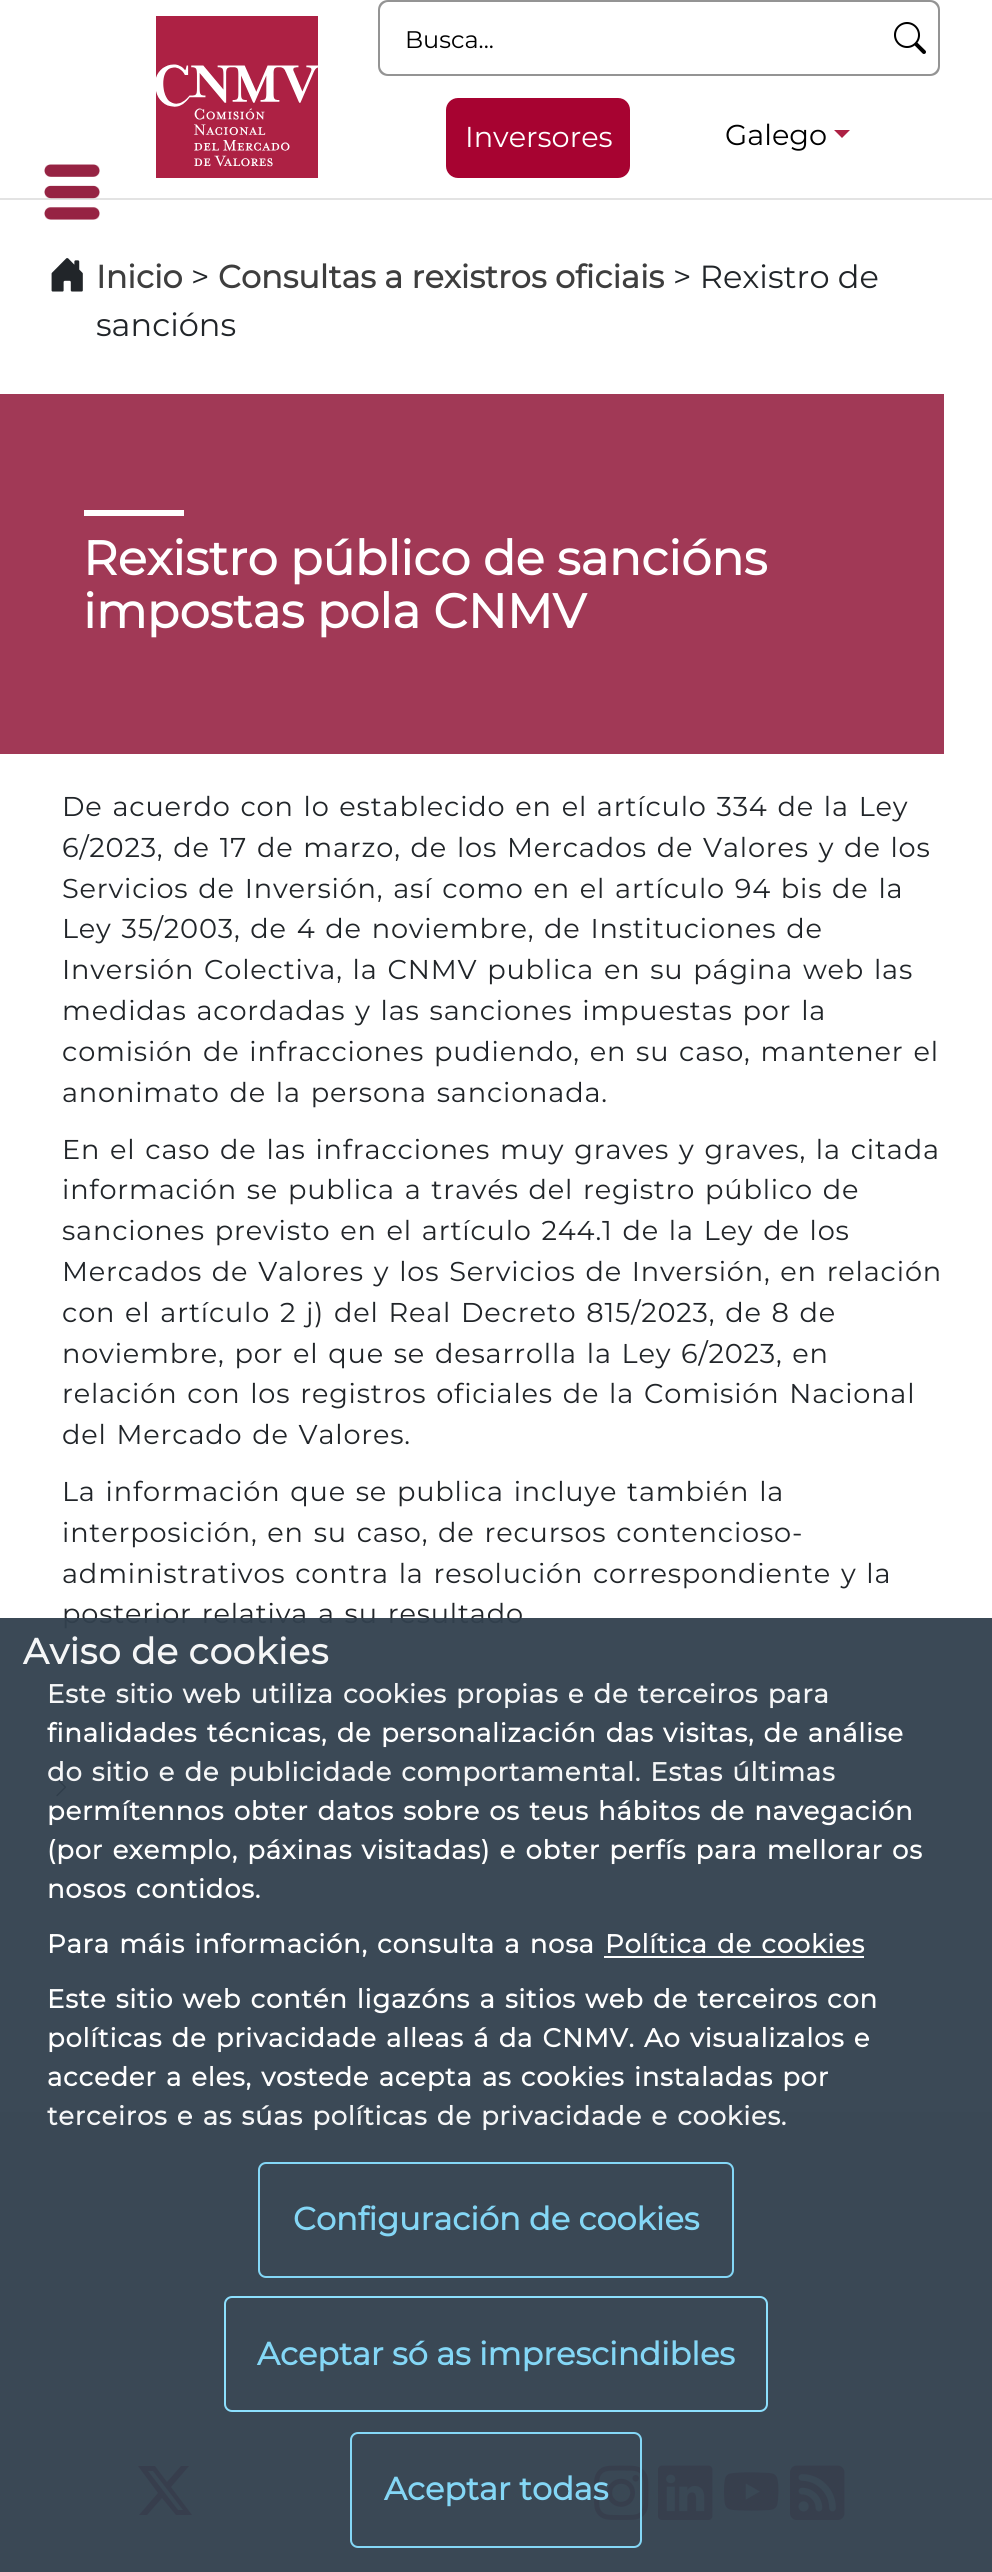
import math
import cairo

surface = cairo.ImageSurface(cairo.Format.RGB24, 992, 2572)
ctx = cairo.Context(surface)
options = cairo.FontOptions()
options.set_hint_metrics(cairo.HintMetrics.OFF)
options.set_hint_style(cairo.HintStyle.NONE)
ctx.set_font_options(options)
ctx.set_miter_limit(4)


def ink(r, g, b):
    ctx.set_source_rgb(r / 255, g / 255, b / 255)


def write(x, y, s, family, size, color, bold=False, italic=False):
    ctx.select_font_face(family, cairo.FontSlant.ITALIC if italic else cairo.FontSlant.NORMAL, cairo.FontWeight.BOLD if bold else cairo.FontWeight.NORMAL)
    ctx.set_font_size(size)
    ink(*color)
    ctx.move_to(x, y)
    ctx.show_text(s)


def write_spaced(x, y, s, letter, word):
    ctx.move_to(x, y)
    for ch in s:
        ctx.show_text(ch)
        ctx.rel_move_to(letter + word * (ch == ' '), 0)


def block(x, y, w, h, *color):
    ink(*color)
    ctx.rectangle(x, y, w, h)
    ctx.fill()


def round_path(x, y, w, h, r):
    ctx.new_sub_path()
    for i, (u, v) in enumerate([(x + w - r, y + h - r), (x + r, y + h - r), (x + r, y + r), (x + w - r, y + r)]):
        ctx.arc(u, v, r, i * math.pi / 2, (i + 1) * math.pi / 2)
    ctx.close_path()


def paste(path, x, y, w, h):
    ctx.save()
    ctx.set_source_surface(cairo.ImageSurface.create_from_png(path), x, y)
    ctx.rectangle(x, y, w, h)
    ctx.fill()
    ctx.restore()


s1 = dict(family="Montserrat", size=24, color=(0, 0, 0))
s2 = dict(family="Montserrat", size=28.75, color=(255, 255, 255))
s3 = dict(family="Montserrat", size=28.75, color=(0, 0, 0))
s4 = dict(family="Montserrat", size=32, color=(62, 62, 62), bold=True)
s5 = dict(family="Montserrat", size=32, color=(33, 37, 41))
s6 = dict(family="Montserrat", size=48, color=(255, 255, 255), bold=True)
s7 = dict(family="Montserrat", size=32, color=(132, 215, 246), bold=True)

ink(255, 255, 255)
ctx.paint()
block(0, 198, 992, 2, 227, 227, 227)
paste("pic1.png", 156, 16, 162, 162)
paste("pic2.png", 44, 164, 56, 56)
ink(148, 148, 148)
ctx.set_fill_rule(cairo.FillRule.EVEN_ODD)
ctx.new_path()
ctx.move_to(882, 0)
ctx.line_to(930, 0)
ctx.curve_to(936, 0, 940, 4, 940, 10)
ctx.line_to(940, 66)
ctx.curve_to(940, 72, 936, 76, 930, 76)
ctx.line_to(882, 76)
ctx.close_path()
ctx.move_to(882, 2)
ctx.line_to(930, 2)
ctx.curve_to(934, 2, 938, 6, 938, 10)
ctx.line_to(938, 66)
ctx.curve_to(938, 70, 934, 74, 930, 74)
ctx.line_to(882, 74)
ctx.close_path()
ctx.fill()
ctx.new_path()
ctx.move_to(388, 0)
ctx.line_to(884, 0)
ctx.line_to(884, 76)
ctx.line_to(388, 76)
ctx.curve_to(382, 76, 378, 72, 378, 66)
ctx.line_to(378, 10)
ctx.curve_to(378, 4, 382, 0, 388, 0)
ctx.close_path()
ctx.move_to(388, 2)
ctx.line_to(884, 2)
ctx.line_to(884, 74)
ctx.line_to(388, 74)
ctx.curve_to(384, 74, 380, 70, 380, 66)
ctx.line_to(380, 10)
ctx.curve_to(380, 6, 384, 2, 388, 2)
ctx.close_path()
ctx.fill()
write(405, 48, "Busca...", **s1)
paste("pic3.png", 894, 22, 32, 32)
ink(167, 3, 49)
round_path(446, 98, 184, 80, 12)
ctx.fill()
write(465, 147, "Inversores", **s2)
write(725, 145, "Galego", **s3)
ink(173, 33, 68)
ctx.set_fill_rule(cairo.FillRule.WINDING)
ctx.new_path()
ctx.move_to(834, 130)
ctx.line_to(850, 130)
ctx.line_to(842, 138)
ctx.close_path()
ctx.fill()
paste("pic4.png", 51, 258, 32, 34)
write(96, 288, "Inicio", **s4)
write(191, 288, ">", **s5)
write(218, 288, "Consultas a rexistros oficiais", **s4)
write(673, 288, "> Rexistro de", **s5)
write(96, 336, "sancións", **s5)
block(0, 394, 944, 360, 161, 57, 86)
block(84, 510, 100, 6, 255, 255, 255)
write(83, 575, "Rexistro público de sancións", **s6)
write(83, 628, "impostas pola CNMV", **s6)
ctx.select_font_face("Montserrat")
ctx.set_font_size(27.2)
ink(33, 37, 41)
write_spaced(62, 816, "De acuerdo con lo establecido en el artículo 334 de la Ley", 0.82, 1.9)
write_spaced(62, 857, "6/2023, de 17 de marzo, de los Mercados de Valores y de los", 0.82, 1.9)
write_spaced(62, 898, "Servicios de Inversión, así como en el artículo 94 bis de la", 0.82, 1.9)
write_spaced(62, 938, "Ley 35/2003, de 4 de noviembre, de Instituciones de", 0.82, 1.9)
write_spaced(62, 979, "Inversión Colectiva, la CNMV publica en su página web las", 0.82, 1.9)
write_spaced(62, 1020, "medidas acordadas y las sanciones impuestas por la", 0.82, 1.9)
write_spaced(62, 1061, "comisión de infracciones pudiendo, en su caso, mantener el", 0.82, 1.9)
write_spaced(62, 1102, "anonimato de la persona sancionada.", 0.82, 1.9)
write_spaced(62, 1159, "En el caso de las infracciones muy graves y graves, la citada", 0.82, 1.9)
write_spaced(62, 1199, "información se publica a través del registro público de", 0.82, 1.9)
write_spaced(62, 1240, "sanciones previsto en el artículo 244.1 de la Ley de los", 0.82, 1.9)
write_spaced(62, 1281, "Mercados de Valores y los Servicios de Inversión, en relación", 0.82, 1.9)
write_spaced(62, 1322, "con el artículo 2 j) del Real Decreto 815/2023, de 8 de", 0.82, 1.9)
write_spaced(62, 1363, "noviembre, por el que se desarrolla la Ley 6/2023, en", 0.82, 1.9)
write_spaced(62, 1403, "relación con los registros oficiales de la Comisión Nacional", 0.82, 1.9)
write_spaced(62, 1444, "del Mercado de Valores.", 0.82, 1.9)
write_spaced(62, 1501, "La información que se publica incluye también la", 0.82, 1.9)
write_spaced(62, 1542, "interposición, en su caso, de recursos contencioso-", 0.82, 1.9)
write_spaced(62, 1583, "administrativos contra la resolución correspondiente y la", 0.82, 1.9)
write_spaced(62, 1623, "posterior relativa a su resultado", 0.82, 1.9)
paste("pic5.png", 56, 1778, 10, 19)
block(0, 2112, 992, 460, 225, 225, 225)
ink(173, 20, 66)
ctx.new_path()
ctx.move_to(181, 2466)
ctx.line_to(189, 2466)
ctx.line_to(171, 2487)
ctx.line_to(192, 2515)
ctx.line_to(176, 2515)
ctx.line_to(162, 2498)
ctx.line_to(147, 2515)
ctx.line_to(139, 2515)
ctx.line_to(158, 2493)
ctx.line_to(138, 2466)
ctx.line_to(155, 2466)
ctx.line_to(167, 2482)
ctx.close_path()
ctx.move_to(178, 2510)
ctx.line_to(183, 2510)
ctx.line_to(153, 2471)
ctx.line_to(148, 2471)
ctx.close_path()
ctx.fill()
paste("pic6.png", 594, 2465, 55, 55)
paste("pic7.png", 658, 2465, 55, 55)
paste("pic8.png", 724, 2472, 55, 39)
paste("pic9.png", 790, 2465, 55, 55)
ctx.set_source_rgba(0.196, 0.251, 0.306, 0.95)
ctx.rectangle(0, 1618, 992, 954)
ctx.fill()
ctx.select_font_face("Montserrat", cairo.FontSlant.NORMAL, cairo.FontWeight.BOLD)
ctx.set_font_size(36)
ink(245, 246, 247)
write_spaced(23, 1664, "Aviso de cookies", 0.6, 0)
ctx.set_font_size(26)
write_spaced(47, 1703, "Este sitio web utiliza cookies propias e de terceiros para", 0.78, 1.75)
ink(255, 255, 255)
write_spaced(47, 1742, "finalidades técnicas, de personalización das visitas, de análise", 0.78, 1.75)
ink(245, 246, 247)
write_spaced(47, 1781, "do sitio e de publicidade comportamental. Estas últimas", 0.78, 1.75)
ink(255, 255, 255)
write_spaced(47, 1820, "permítennos obter datos sobre os teus hábitos de navegación", 0.78, 1.75)
write_spaced(47, 1859, "(por exemplo, páxinas visitadas) e obter perfís para mellorar os", 0.78, 1.75)
write_spaced(47, 1898, "nosos contidos.", 0.78, 1.75)
write_spaced(47, 1953, "Para máis información, consulta a nosa", 0.78, 1.75)
write_spaced(605, 1953, "Política de cookies", 0.78, 1.75)
block(604, 1956, 260, 2, 255, 255, 255)
write_spaced(47, 2008, "Este sitio web contén ligazóns a sitios web de terceiros con", 0.78, 1.75)
write_spaced(47, 2047, "políticas de privacidade alleas á da CNMV. Ao visualizalos e", 0.78, 1.75)
write_spaced(47, 2086, "acceder a eles, vostede acepta as cookies instaladas por", 0.78, 1.75)
ink(245, 246, 247)
write_spaced(47, 2125, "terceiros e as súas políticas de privacidade e cookies.", 0.78, 1.75)
round_path(259, 2163, 474, 114, 7)
ctx.set_source_rgba(0.533, 0.875, 0.996, 0.95)
ctx.stroke()
write(293, 2230, "Configuración de cookies", **s7)
round_path(225, 2297, 542, 114, 7)
ink(140, 223, 253)
ctx.stroke()
write(257, 2365, "Aceptar só as imprescindibles", **s7)
round_path(351, 2433, 290, 114, 7)
ctx.set_source_rgba(0.533, 0.875, 0.996, 0.95)
ctx.stroke()
write(384, 2500, "Aceptar todas", **s7)
surface.write_to_png("screenshot.png")
